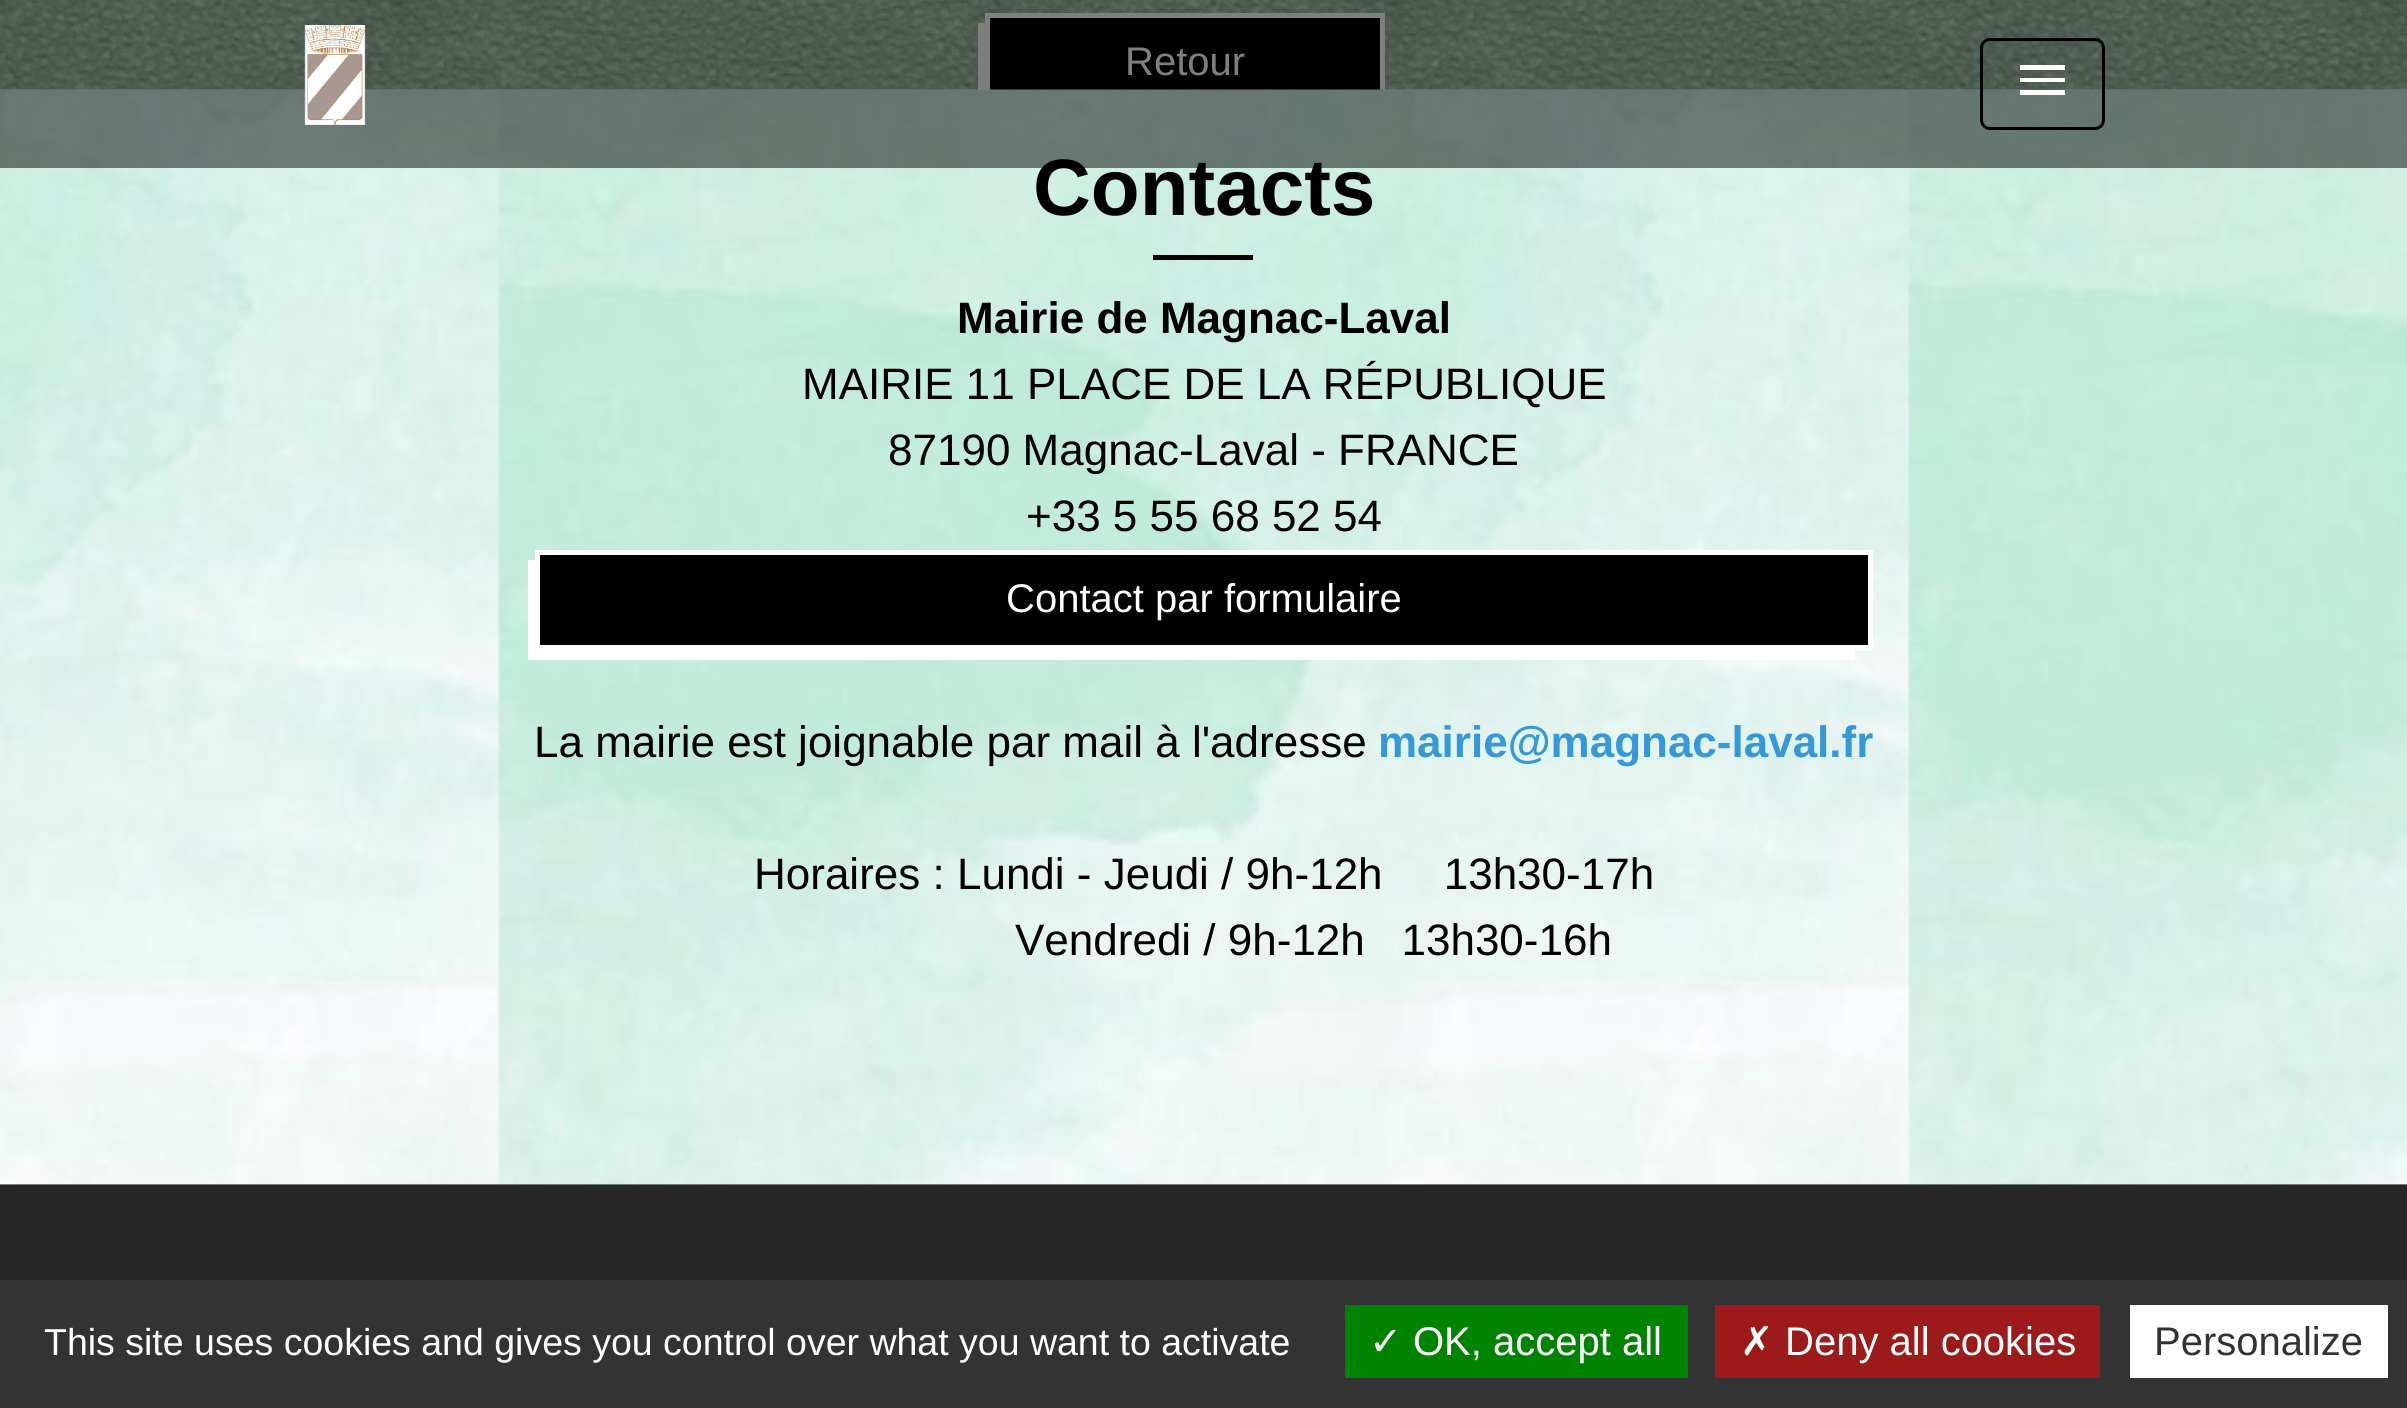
import math
import cairo

surface = cairo.ImageSurface(cairo.Format.RGB24, 2407, 1408)
ctx = cairo.Context(surface)
options = cairo.FontOptions()
options.set_hint_metrics(cairo.HintMetrics.OFF)
options.set_hint_style(cairo.HintStyle.NONE)
ctx.set_font_options(options)
ctx.set_miter_limit(4)


def ink(r, g, b):
    ctx.set_source_rgb(r / 255, g / 255, b / 255)


def write(x, y, s, family, size, color, bold=False, italic=False):
    ctx.select_font_face(family, cairo.FontSlant.ITALIC if italic else cairo.FontSlant.NORMAL, cairo.FontWeight.BOLD if bold else cairo.FontWeight.NORMAL)
    ctx.set_font_size(size)
    ink(*color)
    ctx.move_to(x, y)
    ctx.show_text(s)


def block(x, y, w, h, *color):
    ink(*color)
    ctx.rectangle(x, y, w, h)
    ctx.fill()


def round_path(x, y, w, h, r):
    ctx.new_sub_path()
    for i, (u, v) in enumerate([(x + w - r, y + h - r), (x + r, y + h - r), (x + r, y + r), (x + w - r, y + r)]):
        ctx.arc(u, v, r, i * math.pi / 2, (i + 1) * math.pi / 2)
    ctx.close_path()


def paste(path, x, y, w, h):
    ctx.save()
    ctx.set_source_surface(cairo.ImageSurface.create_from_png(path), x, y)
    ctx.rectangle(x, y, w, h)
    ctx.fill()
    ctx.restore()


s1 = dict(family="Liberation Sans", size=40, color=(255, 255, 255))
s2 = dict(family="Liberation Sans", size=80, color=(0, 0, 0), bold=True)
s3 = dict(family="Liberation Sans", size=44, color=(0, 0, 0), bold=True)
s4 = dict(family="Liberation Sans", size=44, color=(0, 0, 0))
s5 = dict(family="Liberation Sans", size=44, color=(52, 152, 219), bold=True)
s6 = dict(family="Liberation Sans", size=37.5, color=(255, 255, 255))
s7 = dict(family="DejaVu Sans", size=40, color=(255, 255, 255))
s8 = dict(family="Liberation Sans", size=40, color=(51, 51, 51))

ink(195, 235, 202)
ctx.paint()
paste("pic2.png", 0, 0, 2407, 90)
block(990, 18, 390, 72, 0, 0, 0)
ctx.rectangle(987.5, 15.5, 395, 95)
ink(255, 255, 255)
ctx.set_line_width(5)
ctx.stroke()
block(978, 23, 7, 67, 255, 255, 255)
write(1125, 75, "Retour", **s1)
block(0, 1184, 2407, 1, 0, 0, 0)
paste("pic3.png", 0, 89, 2407, 1096)
write(1033, 215, "Contacts", **s2)
ctx.set_source_rgba(0, 0, 0, 0.5)
ctx.rectangle(0, 0, 2407, 168)
ctx.fill()
paste("pic1.png", 304, 25, 62, 100)
round_path(1981.5, 39.5, 122, 89, 8.5)
ink(0, 0, 0)
ctx.set_line_width(3)
ctx.stroke()
ink(255, 255, 255)
ctx.new_path()
ctx.move_to(2020, 65)
ctx.line_to(2065, 65)
ctx.line_to(2065, 70)
ctx.line_to(2020, 70)
ctx.close_path()
ctx.move_to(2020, 82)
ctx.line_to(2020, 78)
ctx.line_to(2065, 78)
ctx.line_to(2065, 82)
ctx.close_path()
ctx.move_to(2020, 95)
ctx.line_to(2020, 90)
ctx.line_to(2065, 90)
ctx.line_to(2065, 95)
ctx.close_path()
ctx.fill()
block(1153, 255, 100, 5, 0, 0, 0)
write(957, 333, "Mairie de Magnac-Laval", **s3)
write(802, 399, "MAIRIE 11 PLACE DE LA RÉPUBLIQUE", **s4)
write(888, 465, "87190 Magnac-Laval - FRANCE", **s4)
write(1026, 531, "+33 5 55 68 52 54", **s4)
block(528, 560, 1327, 100, 255, 255, 255)
ink(0, 0, 0)
ctx.rectangle(537.5, 552.5, 1333, 95)
ctx.fill_preserve()
ink(255, 255, 255)
ctx.set_line_width(5)
ctx.stroke()
write(1006, 612, "Contact par formulaire", **s1)
write(534, 757, "La mairie est joignable par mail à l'adresse", **s4)
write(1378, 757, "mairie@magnac-laval.fr", **s5)
write(754, 889, "Horaires : Lundi - Jeudi / 9h-12h     13h30-17h", **s4)
write(1015, 955, "Vendredi / 9h-12h   13h30-16h", **s4)
block(0, 1185, 2407, 95, 39, 39, 39)
block(0, 1280, 2407, 128, 51, 51, 51)
write(44, 1355, "This site uses cookies and gives you control over what you want to activate", **s6)
block(1345, 1305, 343, 73, 0, 131, 0)
write(1369, 1355, "✓", **s7)
write(1413, 1355, "OK, accept all", **s1)
block(1715, 1305, 385, 73, 156, 26, 26)
write(1740, 1355, "✗", **s7)
write(1785, 1355, "Deny all cookies", **s1)
block(2130, 1305, 258, 73, 255, 255, 255)
write(2154, 1355, "Personalize", **s8)
surface.write_to_png("screenshot.png")
